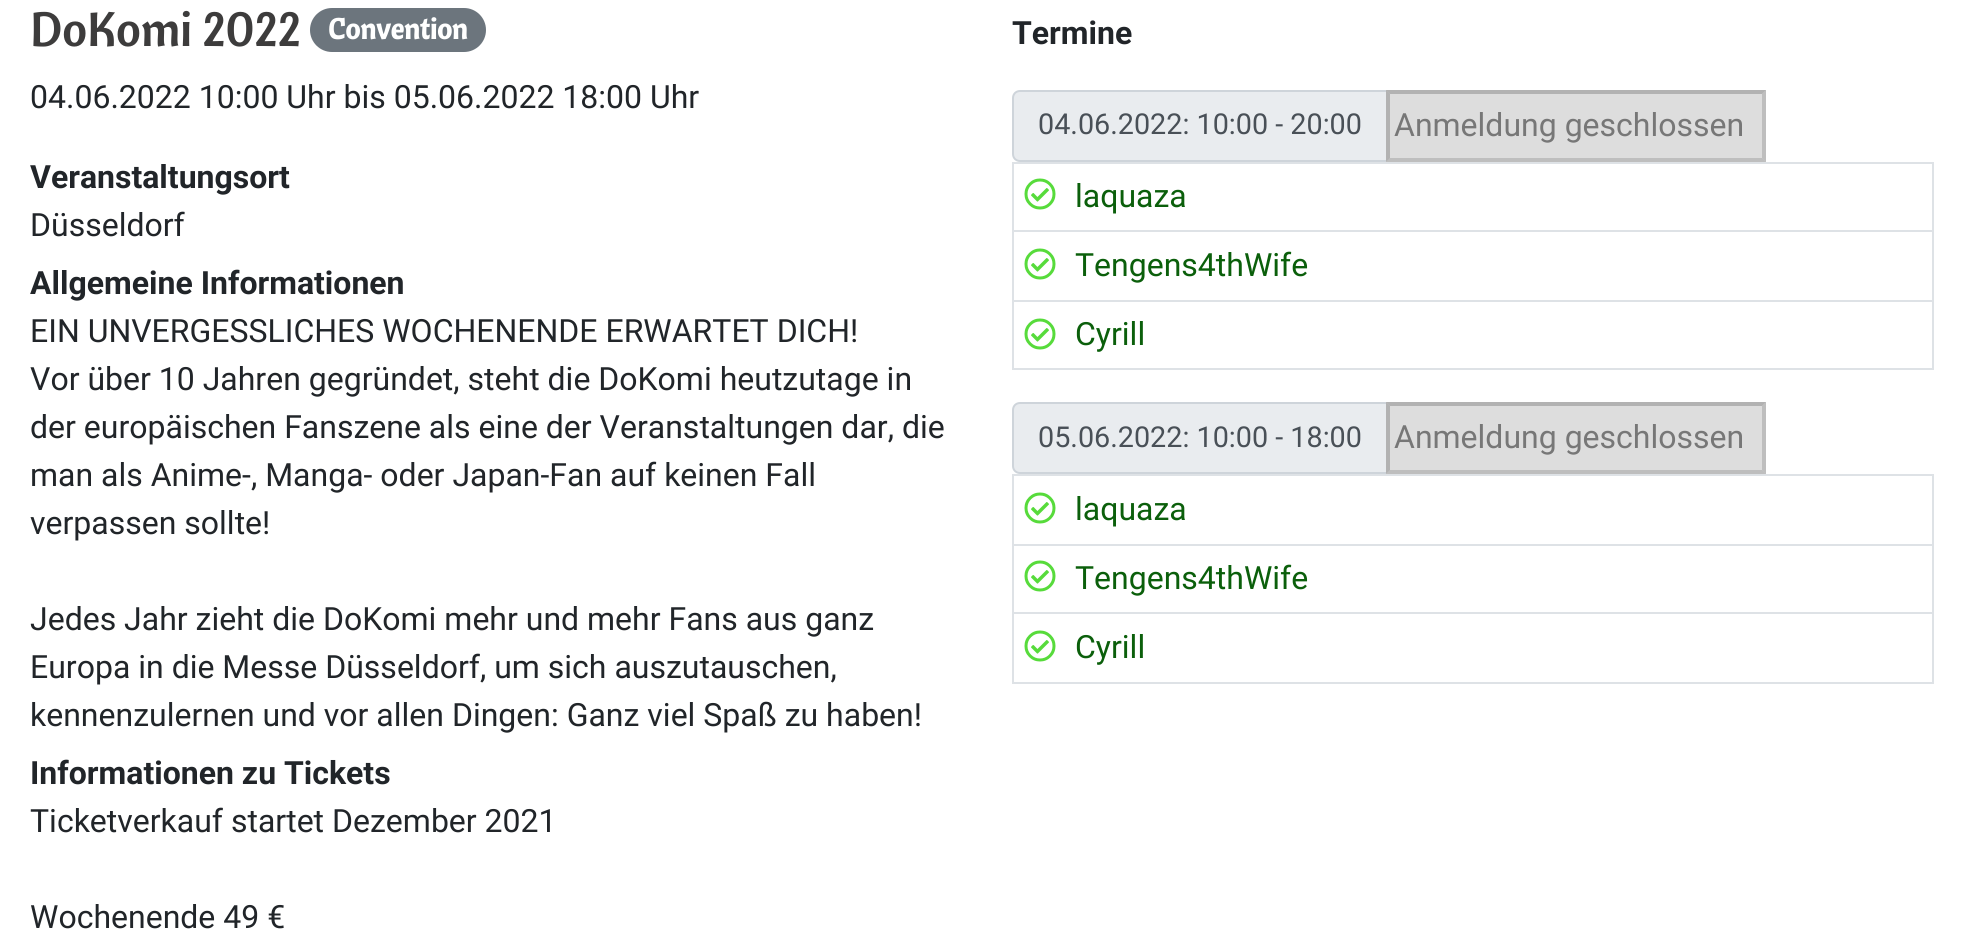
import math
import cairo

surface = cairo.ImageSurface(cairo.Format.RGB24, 1964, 938)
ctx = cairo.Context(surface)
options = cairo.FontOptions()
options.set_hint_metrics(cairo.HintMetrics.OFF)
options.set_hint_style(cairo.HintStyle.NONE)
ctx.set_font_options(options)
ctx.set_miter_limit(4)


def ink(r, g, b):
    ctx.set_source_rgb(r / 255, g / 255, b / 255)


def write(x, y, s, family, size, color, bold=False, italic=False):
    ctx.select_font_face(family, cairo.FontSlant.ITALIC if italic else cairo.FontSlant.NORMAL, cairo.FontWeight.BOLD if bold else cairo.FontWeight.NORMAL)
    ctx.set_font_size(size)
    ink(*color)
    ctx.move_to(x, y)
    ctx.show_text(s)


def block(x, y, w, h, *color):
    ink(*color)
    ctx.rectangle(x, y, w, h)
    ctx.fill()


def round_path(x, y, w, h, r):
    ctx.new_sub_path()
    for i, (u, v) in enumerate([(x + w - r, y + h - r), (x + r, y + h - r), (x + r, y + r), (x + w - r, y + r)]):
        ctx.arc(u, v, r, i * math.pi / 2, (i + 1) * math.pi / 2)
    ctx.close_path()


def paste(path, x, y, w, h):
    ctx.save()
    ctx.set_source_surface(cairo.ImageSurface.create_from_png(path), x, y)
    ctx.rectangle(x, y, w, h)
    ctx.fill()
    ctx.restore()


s1 = dict(family="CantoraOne", size=48, color=(61, 60, 60))
s2 = dict(family="CantoraOne", size=28.75, color=(255, 255, 255), bold=True)
s3 = dict(family="Roboto", size=32, color=(33, 37, 41))
s4 = dict(family="Roboto", size=32, color=(33, 37, 41), bold=True)
s5 = dict(family="Roboto", size=28.75, color=(73, 80, 87))
s6 = dict(family="Roboto", size=32, color=(119, 119, 119))
s7 = dict(family="Roboto", size=32, color=(11, 95, 11))

ink(255, 255, 255)
ctx.paint()
write(30, 46, "DoKomi 2022", **s1)
ink(108, 117, 125)
round_path(310, 8, 176, 44, 22)
ctx.fill()
write(328, 39, "Convention", **s2)
write(30, 108, "04.06.2022 10:00 Uhr bis 05.06.2022 18:00 Uhr", **s3)
write(30, 188, "Veranstaltungsort", **s4)
write(30, 236, "Düsseldorf", **s3)
write(30, 294, "Allgemeine Informationen", **s4)
write(30, 342, "EIN UNVERGESSLICHES WOCHENENDE ERWARTET DICH!", **s3)
write(30, 390, "Vor über 10 Jahren gegründet, steht die DoKomi heutzutage in", **s3)
write(30, 438, "der europäischen Fanszene als eine der Veranstaltungen dar, die", **s3)
write(30, 486, "man als Anime-, Manga- oder Japan-Fan auf keinen Fall", **s3)
write(30, 534, "verpassen sollte!", **s3)
write(30, 630, "Jedes Jahr zieht die DoKomi mehr und mehr Fans aus ganz", **s3)
write(30, 678, "Europa in die Messe Düsseldorf, um sich auszutauschen,", **s3)
write(30, 726, "kennenzulernen und vor allen Dingen: Ganz viel Spaß zu haben!", **s3)
write(30, 784, "Informationen zu Tickets", **s4)
write(30, 832, "Ticketverkauf startet Dezember 2021", **s3)
write(30, 928, "Wochenende 49 €", **s3)
write(1012, 44, "Termine", **s4)
ink(233, 236, 239)
ctx.new_path()
ctx.move_to(1020, 91)
ctx.line_to(1387, 91)
ctx.line_to(1387, 161)
ctx.line_to(1020, 161)
ctx.curve_to(1016, 161, 1013, 158, 1013, 154)
ctx.line_to(1013, 98)
ctx.curve_to(1013, 94, 1016, 91, 1020, 91)
ctx.close_path()
ctx.fill_preserve()
ink(206, 212, 218)
ctx.stroke()
write(1038, 134, "04.06.2022: 10:00 - 20:00", **s5)
block(1386, 90, 380, 72, 221, 221, 221)
ink(178, 178, 178)
ctx.new_path()
ctx.move_to(1386, 90)
ctx.line_to(1766, 90)
ctx.line_to(1762, 94)
ctx.line_to(1390, 94)
ctx.close_path()
ctx.fill()
ctx.set_source_rgba(0.463, 0.463, 0.463, 0.3)
ctx.new_path()
ctx.move_to(1766, 90)
ctx.line_to(1766, 162)
ctx.line_to(1762, 158)
ctx.line_to(1762, 94)
ctx.close_path()
ctx.fill()
ctx.new_path()
ctx.move_to(1766, 162)
ctx.line_to(1386, 162)
ctx.line_to(1390, 158)
ctx.line_to(1762, 158)
ctx.close_path()
ctx.fill()
ctx.set_source_rgba(0.31, 0.31, 0.31, 0.3)
ctx.new_path()
ctx.move_to(1386, 162)
ctx.line_to(1386, 90)
ctx.line_to(1390, 94)
ctx.line_to(1390, 158)
ctx.close_path()
ctx.fill()
write(1394, 136, "Anmeldung geschlossen", **s6)
block(1012, 162, 922, 2, 222, 226, 230)
block(1012, 230, 922, 2, 222, 226, 230)
block(1012, 300, 922, 2, 222, 226, 230)
block(1932, 300, 2, 70, 222, 226, 230)
block(1932, 230, 2, 72, 222, 226, 230)
block(1932, 162, 2, 70, 222, 226, 230)
block(1012, 368, 922, 2, 222, 226, 230)
block(1012, 300, 2, 70, 222, 226, 230)
block(1012, 230, 2, 72, 222, 226, 230)
block(1012, 162, 2, 70, 222, 226, 230)
paste("pic1.png", 1024, 178, 32, 32)
write(1075, 207, "laquaza", **s7)
paste("pic1.png", 1024, 248, 32, 32)
write(1075, 276, "Tengens4thWife", **s7)
paste("pic1.png", 1024, 318, 32, 32)
write(1075, 345, "Cyrill", **s7)
ink(233, 236, 239)
ctx.new_path()
ctx.move_to(1020, 403)
ctx.line_to(1387, 403)
ctx.line_to(1387, 473)
ctx.line_to(1020, 473)
ctx.curve_to(1016, 473, 1013, 470, 1013, 466)
ctx.line_to(1013, 410)
ctx.curve_to(1013, 406, 1016, 403, 1020, 403)
ctx.close_path()
ctx.fill_preserve()
ink(206, 212, 218)
ctx.stroke()
write(1038, 447, "05.06.2022: 10:00 - 18:00", **s5)
block(1386, 402, 380, 72, 221, 221, 221)
ink(178, 178, 178)
ctx.new_path()
ctx.move_to(1386, 402)
ctx.line_to(1766, 402)
ctx.line_to(1762, 406)
ctx.line_to(1390, 406)
ctx.close_path()
ctx.fill()
ctx.set_source_rgba(0.463, 0.463, 0.463, 0.3)
ctx.new_path()
ctx.move_to(1766, 402)
ctx.line_to(1766, 474)
ctx.line_to(1762, 470)
ctx.line_to(1762, 406)
ctx.close_path()
ctx.fill()
ctx.new_path()
ctx.move_to(1766, 474)
ctx.line_to(1386, 474)
ctx.line_to(1390, 470)
ctx.line_to(1762, 470)
ctx.close_path()
ctx.fill()
ctx.set_source_rgba(0.31, 0.31, 0.31, 0.3)
ctx.new_path()
ctx.move_to(1386, 474)
ctx.line_to(1386, 402)
ctx.line_to(1390, 406)
ctx.line_to(1390, 470)
ctx.close_path()
ctx.fill()
write(1394, 448, "Anmeldung geschlossen", **s6)
block(1012, 474, 922, 2, 222, 226, 230)
block(1012, 544, 922, 2, 222, 226, 230)
block(1012, 612, 922, 2, 222, 226, 230)
block(1932, 612, 2, 72, 222, 226, 230)
block(1932, 544, 2, 70, 222, 226, 230)
block(1932, 474, 2, 72, 222, 226, 230)
block(1012, 682, 922, 2, 222, 226, 230)
block(1012, 612, 2, 72, 222, 226, 230)
block(1012, 544, 2, 70, 222, 226, 230)
block(1012, 474, 2, 72, 222, 226, 230)
paste("pic1.png", 1024, 492, 32, 32)
write(1075, 520, "laquaza", **s7)
paste("pic1.png", 1024, 560, 32, 32)
write(1075, 589, "Tengens4thWife", **s7)
paste("pic1.png", 1024, 630, 32, 32)
write(1075, 658, "Cyrill", **s7)
surface.write_to_png("screenshot.png")
